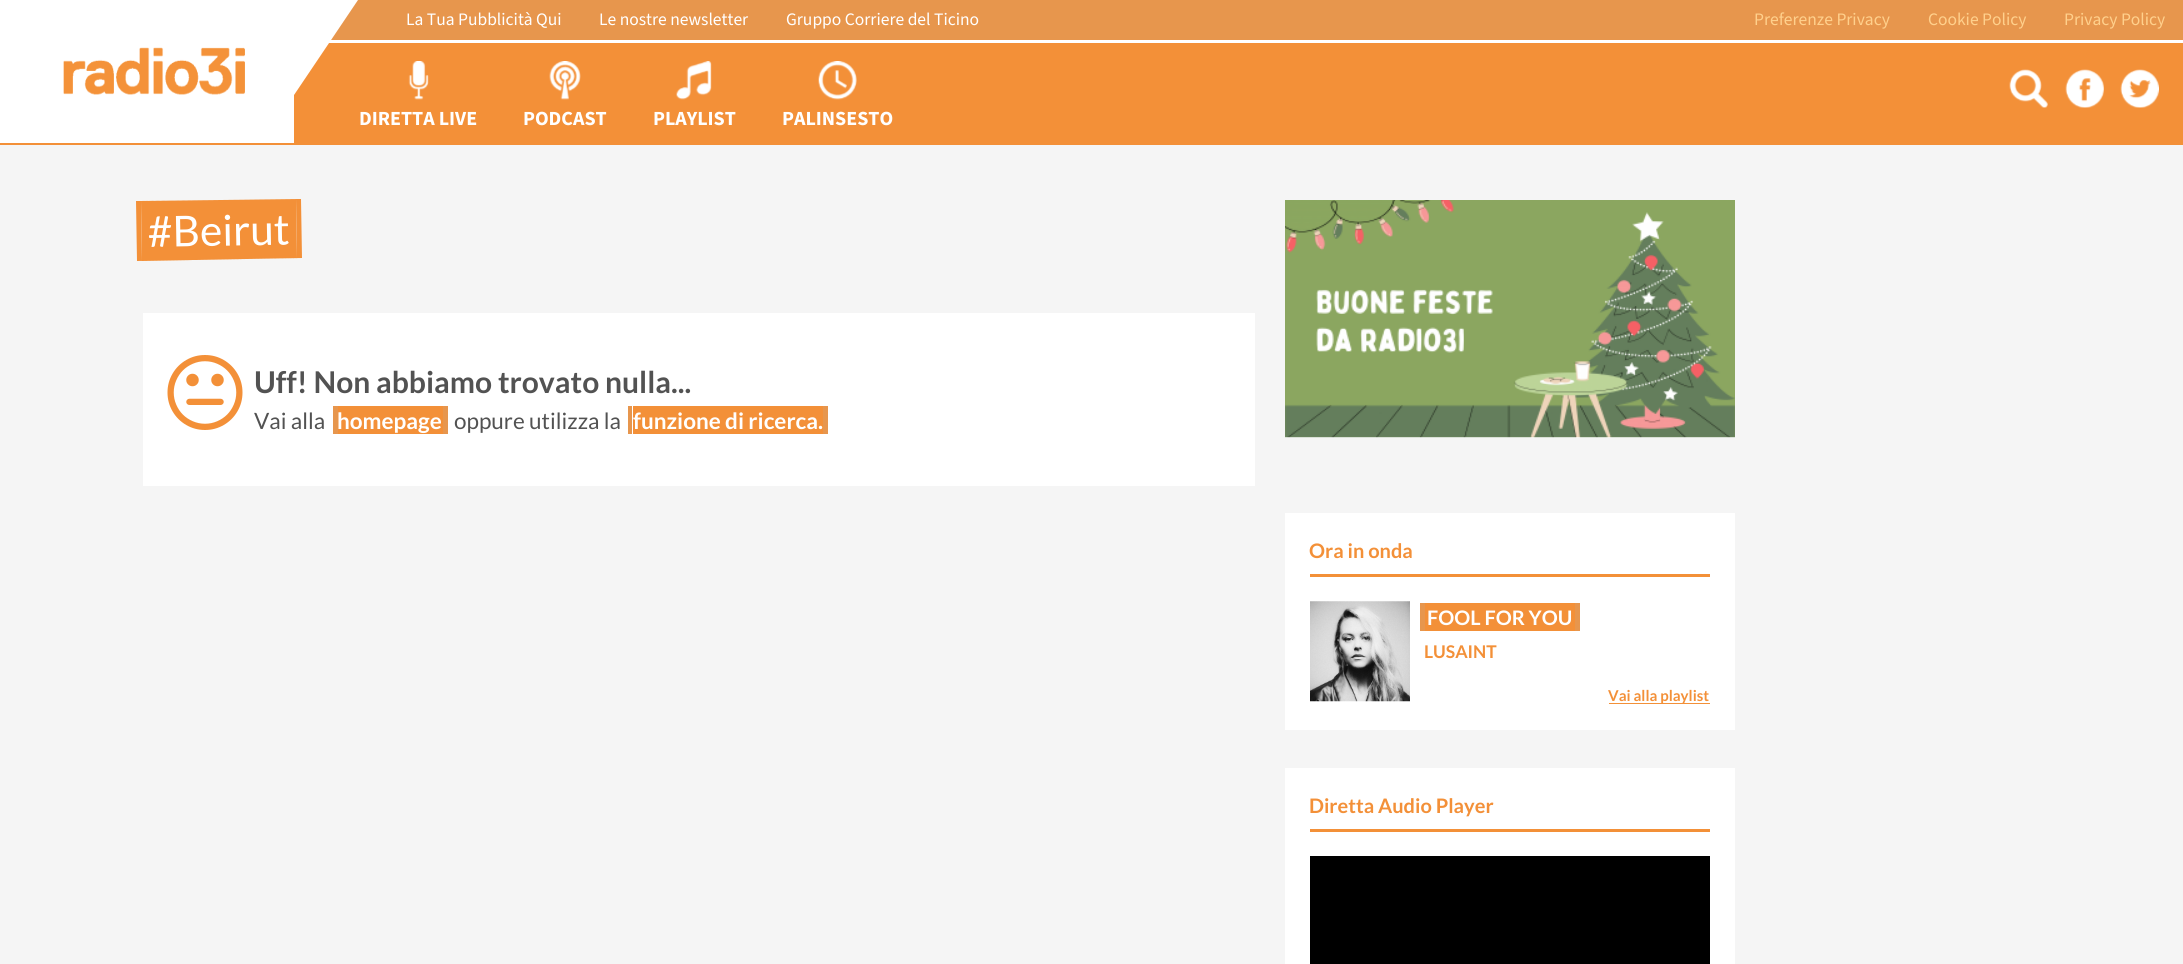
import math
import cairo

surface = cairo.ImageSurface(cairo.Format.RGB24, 2183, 964)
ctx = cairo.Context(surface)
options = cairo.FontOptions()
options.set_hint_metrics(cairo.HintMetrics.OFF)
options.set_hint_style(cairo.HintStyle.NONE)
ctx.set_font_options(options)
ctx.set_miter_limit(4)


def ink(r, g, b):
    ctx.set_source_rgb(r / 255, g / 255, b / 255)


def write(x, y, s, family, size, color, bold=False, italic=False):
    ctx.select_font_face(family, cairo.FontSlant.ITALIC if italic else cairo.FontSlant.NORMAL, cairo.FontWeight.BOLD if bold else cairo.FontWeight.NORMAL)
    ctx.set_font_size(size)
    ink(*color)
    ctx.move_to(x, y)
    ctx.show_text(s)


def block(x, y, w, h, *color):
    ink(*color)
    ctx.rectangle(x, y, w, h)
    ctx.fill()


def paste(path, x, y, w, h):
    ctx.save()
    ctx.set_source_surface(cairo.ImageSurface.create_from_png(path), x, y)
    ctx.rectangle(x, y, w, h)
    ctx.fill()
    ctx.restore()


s1 = dict(family="Source Sans 3", size=17.5, color=(255, 255, 255))
s2 = dict(family="Source Sans 3", size=17.5, color=(255, 208, 140))
s3 = dict(family="Source Sans 3", size=20, color=(255, 255, 255), bold=True)
s4 = dict(family="Lato", size=42.5, color=(255, 255, 255))
s5 = dict(family="Lato", size=30, color=(82, 82, 82), bold=True)
s6 = dict(family="Lato", size=22.5, color=(82, 82, 82))
s7 = dict(family="Lato", size=22.5, color=(255, 255, 255), bold=True)
s8 = dict(family="Lato", size=20, color=(243, 144, 56), bold=True)
s9 = dict(family="Lato", size=20, color=(255, 255, 255), bold=True)
s10 = dict(family="Lato", size=17.5, color=(243, 144, 56), bold=True)
s11 = dict(family="Lato", size=15, color=(243, 144, 56), bold=True)

ink(245, 245, 245)
ctx.paint()
block(0, 43, 2183, 102, 243, 144, 56)
block(0, 0, 294, 143, 255, 255, 255)
paste("pic1.png", 63, 47, 182, 48)
block(331, 0, 1852, 40, 231, 150, 77)
block(329, 40, 1854, 3, 255, 255, 255)
ctx.new_path()
ctx.move_to(292, 0)
ctx.line_to(358, 0)
ctx.line_to(292, 98)
ctx.close_path()
ctx.fill()
write(406, 25, "La Tua Pubblicità Qui", **s1)
write(599, 25, "Le nostre newsletter", **s1)
write(786, 25, "Gruppo Corriere del Ticino", **s1)
write(1754, 25, "Preferenze Privacy", **s2)
write(1928, 25, "Cookie Policy", **s2)
write(2064, 25, "Privacy Policy", **s2)
paste("pic2.png", 2009, 69, 39, 39)
paste("pic3.png", 2065, 69, 39, 39)
paste("pic4.png", 2120, 69, 39, 39)
paste("pic5.png", 408, 61, 21, 39)
write(359, 125, "DIRETTA LIVE", **s3)
paste("pic6.png", 549, 61, 32, 39)
write(523, 125, "PODCAST", **s3)
paste("pic7.png", 676, 61, 36, 39)
write(653, 125, "PLAYLIST", **s3)
paste("pic8.png", 818, 61, 39, 39)
write(782, 125, "PALINSESTO", **s3)
ink(243, 144, 56)
ctx.new_path()
ctx.move_to(136, 201)
ctx.line_to(234, 200)
ctx.line_to(141, 201)
ctx.line_to(142, 261)
ctx.line_to(292, 258)
ctx.line_to(137, 261)
ctx.close_path()
ctx.fill()
ctx.set_fill_rule(cairo.FillRule.EVEN_ODD)
ctx.new_path()
ctx.move_to(257, 259)
ctx.line_to(302, 258)
ctx.line_to(301, 199)
ctx.line_to(296, 199)
ctx.line_to(297, 258)
ctx.close_path()
ctx.move_to(146, 201)
ctx.line_to(206, 200)
ctx.close_path()
ctx.fill()
ctx.set_fill_rule(cairo.FillRule.WINDING)
ctx.new_path()
ctx.move_to(141, 201)
ctx.line_to(296, 199)
ctx.line_to(297, 258)
ctx.line_to(142, 261)
ctx.close_path()
ctx.fill()
ctx.save()
ctx.translate(148, 247)
ctx.rotate(-1 * math.pi / 180)
write(0, 0, "#Beirut", **s4)
ctx.restore()
block(143, 313, 1112, 173, 255, 255, 255)
paste("pic9.png", 167, 355, 76, 75)
write(254, 393, "Uff! Non abbiamo trovato nulla...", **s5)
write(254, 429, "Vai alla", **s6)
ink(231, 150, 77)
ctx.new_path()
ctx.move_to(343, 406)
ctx.line_to(442, 406)
ctx.line_to(442, 434)
ctx.line_to(343, 434)
ctx.line_to(448, 434)
ctx.line_to(448, 406)
ctx.close_path()
ctx.fill()
block(338, 406, 105, 28, 243, 144, 56)
write(337, 429, "homepage", **s7)
ink(231, 150, 77)
ctx.new_path()
ctx.move_to(333, 406)
ctx.line_to(333, 434)
ctx.line_to(438, 434)
ctx.line_to(338, 434)
ctx.line_to(338, 406)
ctx.line_to(438, 406)
ctx.close_path()
ctx.fill()
write(454, 429, "oppure utilizza la", **s6)
ink(231, 150, 77)
ctx.new_path()
ctx.move_to(638, 406)
ctx.line_to(822, 406)
ctx.line_to(822, 434)
ctx.line_to(638, 434)
ctx.line_to(828, 434)
ctx.line_to(828, 406)
ctx.close_path()
ctx.fill()
block(633, 406, 190, 28, 243, 144, 56)
write(633, 429, "funzione di ricerca.", **s7)
ink(231, 150, 77)
ctx.new_path()
ctx.move_to(628, 406)
ctx.line_to(628, 434)
ctx.line_to(818, 434)
ctx.line_to(632, 434)
ctx.line_to(632, 406)
ctx.line_to(818, 406)
ctx.close_path()
ctx.fill()
block(1285, 437, 450, 1, 255, 255, 255)
paste("pic10.png", 1285, 200, 450, 238)
block(1285, 513, 450, 217, 255, 255, 255)
block(1310, 574, 400, 3, 243, 144, 56)
write(1309, 558, "Ora in onda", **s8)
paste("pic11.png", 1310, 601, 100, 101)
block(1425, 603, 150, 28, 243, 144, 56)
write(1427, 625, "FOOL FOR YOU", **s9)
block(1420, 603, 5, 28, 231, 150, 77)
block(1575, 603, 5, 28, 231, 150, 77)
write(1424, 658, "LUSAINT", **s10)
block(1609, 703, 101, 1, 243, 144, 56)
write(1608, 701, "Vai alla playlist", **s11)
block(1285, 768, 450, 196, 255, 255, 255)
block(1310, 829, 400, 3, 243, 144, 56)
write(1309, 813, "Diretta Audio Player", **s8)
block(1310, 856, 400, 108, 0, 0, 0)
surface.write_to_png("screenshot.png")
